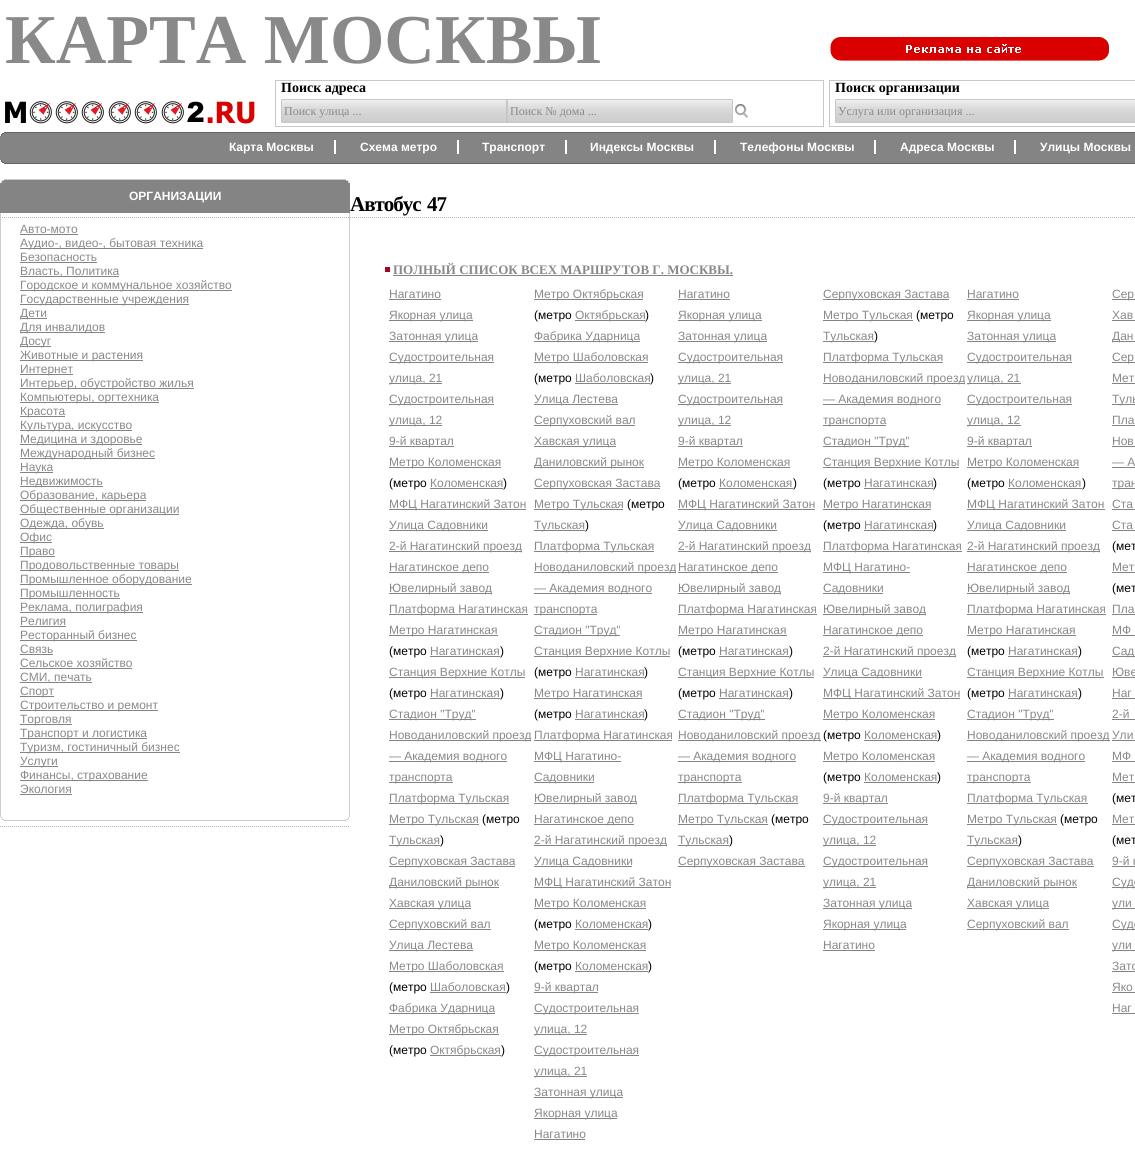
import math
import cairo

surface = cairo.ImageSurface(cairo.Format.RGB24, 1135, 1153)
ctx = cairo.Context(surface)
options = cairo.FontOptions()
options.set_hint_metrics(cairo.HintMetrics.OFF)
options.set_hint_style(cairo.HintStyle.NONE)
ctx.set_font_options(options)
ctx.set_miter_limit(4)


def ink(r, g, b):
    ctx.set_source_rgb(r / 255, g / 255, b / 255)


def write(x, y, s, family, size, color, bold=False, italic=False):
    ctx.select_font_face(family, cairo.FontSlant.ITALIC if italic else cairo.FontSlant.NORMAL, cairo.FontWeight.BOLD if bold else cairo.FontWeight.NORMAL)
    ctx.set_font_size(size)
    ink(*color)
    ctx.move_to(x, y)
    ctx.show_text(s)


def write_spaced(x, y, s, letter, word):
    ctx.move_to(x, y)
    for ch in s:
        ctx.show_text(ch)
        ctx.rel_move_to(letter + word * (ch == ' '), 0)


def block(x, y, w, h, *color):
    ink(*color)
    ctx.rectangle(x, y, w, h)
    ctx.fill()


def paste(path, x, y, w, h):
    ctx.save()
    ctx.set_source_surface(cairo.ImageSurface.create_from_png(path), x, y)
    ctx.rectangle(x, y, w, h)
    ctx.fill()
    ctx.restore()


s1 = dict(family="Liberation Serif", size=70, color=(137, 137, 137), bold=True)
s2 = dict(family="Liberation Serif", size=14, color=(0, 0, 0), bold=True)
s3 = dict(family="Liberation Serif", size=12, color=(137, 137, 137))
s4 = dict(family="Liberation Sans", size=12, color=(255, 255, 255), bold=True)
s5 = dict(family="Liberation Sans", size=12, color=(137, 137, 137))
s6 = dict(family="Liberation Serif", size=13, color=(137, 137, 137), bold=True)
s7 = dict(family="Liberation Sans", size=12, color=(0, 0, 0))

ink(255, 255, 255)
ctx.paint()
write(5, 63, "КАРТА МОСКВЫ", **s1)
paste("pic1.png", 5, 101, 250, 23)
ctx.rectangle(275.5, 80.5, 548, 46)
ink(199, 199, 199)
ctx.set_line_width(1)
ctx.stroke()
write(281, 92, "Поиск адреса", **s2)
ink(237, 237, 237)
ctx.new_path()
ctx.move_to(283, 99)
ctx.line_to(507, 99)
ctx.line_to(507, 123)
ctx.line_to(283, 123)
ctx.curve_to(282, 123, 281, 122, 281, 121)
ctx.line_to(281, 101)
ctx.curve_to(281, 100, 282, 99, 283, 99)
ctx.close_path()
ctx.fill()
paste("pic2.png", 281, 102, 225, 21)
ctx.new_path()
ctx.move_to(283, 99.5)
ctx.line_to(506.5, 99.5)
ctx.line_to(506.5, 122.5)
ctx.line_to(283, 122.5)
ctx.curve_to(282, 122.5, 281.5, 122, 281.5, 121)
ctx.line_to(281.5, 101)
ctx.curve_to(281.5, 100, 282, 99.5, 283, 99.5)
ctx.close_path()
ink(199, 199, 199)
ctx.stroke()
write(284, 115, "Поиск улица ...", **s3)
ink(237, 237, 237)
ctx.new_path()
ctx.move_to(507, 99)
ctx.line_to(731, 99)
ctx.curve_to(732, 99, 733, 100, 733, 101)
ctx.line_to(733, 121)
ctx.curve_to(733, 122, 732, 123, 731, 123)
ctx.line_to(507, 123)
ctx.close_path()
ctx.fill()
paste("pic3.png", 508, 102, 225, 21)
ctx.new_path()
ctx.move_to(507.5, 99.5)
ctx.line_to(731, 99.5)
ctx.curve_to(732, 99.5, 732.5, 100, 732.5, 101)
ctx.line_to(732.5, 121)
ctx.curve_to(732.5, 122, 732, 122.5, 731, 122.5)
ctx.line_to(507.5, 122.5)
ctx.close_path()
ink(199, 199, 199)
ctx.stroke()
write(510, 115, "Поиск № дома ...", **s3)
paste("pic4.png", 735, 104, 13, 14)
ctx.rectangle(829.5, 80.5, 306, 46)
ink(199, 199, 199)
ctx.stroke()
write(835, 92, "Поиск организации", **s2)
ink(237, 237, 237)
ctx.new_path()
ctx.move_to(837, 99)
ctx.line_to(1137, 99)
ctx.line_to(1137, 123)
ctx.line_to(837, 123)
ctx.curve_to(836, 123, 835, 122, 835, 121)
ctx.line_to(835, 101)
ctx.curve_to(835, 100, 836, 99, 837, 99)
ctx.close_path()
ctx.fill()
paste("pic5.png", 835, 102, 300, 21)
ctx.new_path()
ctx.move_to(837, 99.5)
ctx.line_to(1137.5, 99.5)
ctx.line_to(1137.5, 122.5)
ctx.line_to(837, 122.5)
ctx.curve_to(836, 122.5, 835.5, 122, 835.5, 121)
ctx.line_to(835.5, 101)
ctx.curve_to(835.5, 100, 836, 99.5, 837, 99.5)
ctx.close_path()
ink(199, 199, 199)
ctx.stroke()
write(838, 115, "Услуга или организация ...", **s3)
paste("pic6.png", 830, 37, 279, 24)
block(4, 132, 1131, 1, 102, 102, 102)
block(2, 133, 1133, 1, 132, 132, 132)
block(2, 133, 2, 1, 102, 102, 102)
block(1, 134, 1134, 2, 132, 132, 132)
block(1, 134, 1, 2, 102, 102, 102)
block(0, 136, 1135, 24, 132, 132, 132)
write(229, 151, "Карта Москвы", **s4)
block(334, 140, 2, 14, 255, 255, 255)
write(360, 151, "Схема метро", **s4)
block(457, 140, 2, 14, 255, 255, 255)
write(482, 151, "Транспорт", **s4)
block(565, 140, 2, 14, 255, 255, 255)
write(590, 151, "Индексы Москвы", **s4)
block(714, 140, 2, 14, 255, 255, 255)
write(740, 151, "Телефоны Москвы", **s4)
block(874, 140, 2, 14, 255, 255, 255)
write(900, 151, "Адреса Москвы", **s4)
block(1014, 140, 2, 14, 255, 255, 255)
write(1040, 151, "Улицы Москвы", **s4)
block(1, 160, 1134, 2, 132, 132, 132)
block(1, 160, 1, 2, 102, 102, 102)
block(2, 162, 1133, 1, 132, 132, 132)
block(2, 162, 2, 1, 102, 102, 102)
block(4, 163, 1131, 1, 102, 102, 102)
block(4, 179, 342, 1, 204, 204, 204)
block(2, 180, 346, 1, 132, 132, 132)
block(346, 180, 2, 1, 204, 204, 204)
block(2, 180, 2, 1, 204, 204, 204)
block(1, 181, 348, 2, 132, 132, 132)
block(348, 181, 1, 2, 204, 204, 204)
block(1, 181, 1, 2, 204, 204, 204)
block(0, 183, 350, 30, 132, 132, 132)
write(129, 200, "ОРГАНИЗАЦИИ", **s4)
ctx.new_path()
ctx.move_to(0, 217.5)
ctx.line_to(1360, 217.5)
ink(179, 179, 179)
ctx.set_dash([1, 1])
ctx.stroke()
block(349, 213, 1, 604, 204, 204, 204)
block(0, 213, 1, 604, 204, 204, 204)
write(20, 233, "Авто-мото", **s5)
block(20, 234, 58, 1, 132, 132, 132)
block(20, 248, 183, 1, 132, 132, 132)
write(20, 247, "Аудио-, видео-, бытовая техника", **s5)
write(20, 261, "Безопасность", **s5)
block(20, 262, 77, 1, 132, 132, 132)
block(20, 276, 99, 1, 132, 132, 132)
write(20, 275, "Власть, Политика", **s5)
block(20, 290, 212, 1, 132, 132, 132)
write(20, 289, "Городское и коммунальное хозяйство", **s5)
block(20, 304, 169, 1, 132, 132, 132)
write(20, 303, "Государственные учреждения", **s5)
block(20, 318, 27, 1, 132, 132, 132)
write(20, 317, "Дети", **s5)
block(20, 332, 85, 1, 132, 132, 132)
write(20, 331, "Для инвалидов", **s5)
block(20, 346, 31, 1, 132, 132, 132)
write(20, 345, "Досуг", **s5)
block(20, 360, 123, 1, 132, 132, 132)
write(20, 359, "Животные и растения", **s5)
block(20, 374, 53, 1, 132, 132, 132)
write(20, 373, "Интернет", **s5)
block(20, 388, 174, 1, 132, 132, 132)
write(20, 387, "Интерьер, обустройство жилья", **s5)
block(20, 402, 139, 1, 132, 132, 132)
write(20, 401, "Компьютеры, оргтехника", **s5)
block(20, 416, 45, 1, 132, 132, 132)
write(20, 415, "Красота", **s5)
block(20, 430, 112, 1, 132, 132, 132)
write(20, 429, "Культура, искусство", **s5)
block(20, 444, 122, 1, 132, 132, 132)
write(20, 443, "Медицина и здоровье", **s5)
block(20, 458, 135, 1, 132, 132, 132)
write(20, 457, "Международный бизнес", **s5)
block(20, 472, 33, 1, 132, 132, 132)
write(20, 471, "Наука", **s5)
block(20, 486, 83, 1, 132, 132, 132)
write(20, 485, "Недвижимость", **s5)
block(20, 500, 126, 1, 132, 132, 132)
write(20, 499, "Образование, карьера", **s5)
block(20, 514, 159, 1, 132, 132, 132)
write(20, 513, "Общественные организации", **s5)
block(20, 528, 84, 1, 132, 132, 132)
write(20, 527, "Одежда, обувь", **s5)
block(20, 542, 32, 1, 132, 132, 132)
write(20, 541, "Офис", **s5)
block(20, 556, 35, 1, 132, 132, 132)
write(20, 555, "Право", **s5)
block(20, 570, 159, 1, 132, 132, 132)
write(20, 569, "Продовольственные товары", **s5)
block(20, 584, 172, 1, 132, 132, 132)
write(20, 583, "Промышленное оборудование", **s5)
block(20, 598, 100, 1, 132, 132, 132)
write(20, 597, "Промышленность", **s5)
block(20, 612, 123, 1, 132, 132, 132)
write(20, 611, "Реклама, полиграфия", **s5)
write(20, 625, "Религия", **s5)
block(20, 626, 46, 1, 132, 132, 132)
block(20, 640, 117, 1, 132, 132, 132)
write(20, 639, "Ресторанный бизнес", **s5)
write(20, 653, "Связь", **s5)
block(20, 654, 33, 1, 132, 132, 132)
write(20, 667, "Сельское хозяйство", **s5)
block(20, 668, 112, 1, 132, 132, 132)
block(20, 682, 72, 1, 132, 132, 132)
write(20, 681, "СМИ, печать", **s5)
block(20, 696, 34, 1, 132, 132, 132)
write(20, 695, "Спорт", **s5)
block(20, 710, 138, 1, 132, 132, 132)
write(20, 709, "Строительство и ремонт", **s5)
block(20, 724, 52, 1, 132, 132, 132)
write(20, 723, "Торговля", **s5)
block(20, 738, 127, 1, 132, 132, 132)
write(20, 737, "Транспорт и логистика", **s5)
block(20, 752, 160, 1, 132, 132, 132)
write(20, 751, "Туризм, гостиничный бизнес", **s5)
block(20, 766, 38, 1, 132, 132, 132)
write(20, 765, "Услуги", **s5)
block(20, 780, 128, 1, 132, 132, 132)
write(20, 779, "Финансы, страхование", **s5)
write(20, 793, "Экология", **s5)
block(20, 794, 52, 1, 132, 132, 132)
block(348, 817, 1, 2, 204, 204, 204)
block(1, 817, 1, 2, 204, 204, 204)
block(346, 819, 2, 1, 204, 204, 204)
block(2, 819, 2, 1, 204, 204, 204)
block(4, 820, 342, 1, 204, 204, 204)
ctx.new_path()
ctx.move_to(0, 826.5)
ctx.line_to(350, 826.5)
ink(179, 179, 179)
ctx.stroke()
ctx.select_font_face("Liberation Serif", cairo.FontSlant.NORMAL, cairo.FontWeight.BOLD)
ctx.set_font_size(21)
ink(0, 0, 0)
write_spaced(350, 211, "Автобус 47", -1, 2)
block(385, 267, 5, 5, 168, 3, 31)
write(393, 274, "ПОЛНЫЙ СПИСОК ВСЕХ МАРШРУТОВ Г. МОСКВЫ.", **s6)
block(393, 275, 340, 1, 132, 132, 132)
write(389, 298, "Нагатино", **s5)
block(389, 299, 52, 1, 132, 132, 132)
block(389, 320, 84, 1, 132, 132, 132)
write(389, 319, "Якорная улица", **s5)
block(389, 341, 89, 1, 132, 132, 132)
write(389, 340, "Затонная улица", **s5)
block(389, 362, 105, 1, 132, 132, 132)
write(389, 361, "Судостроительная", **s5)
block(389, 383, 53, 1, 132, 132, 132)
write(389, 382, "улица, 21", **s5)
block(389, 404, 105, 1, 132, 132, 132)
write(389, 403, "Судостроительная", **s5)
block(389, 425, 53, 1, 132, 132, 132)
write(389, 424, "улица, 12", **s5)
block(389, 446, 65, 1, 132, 132, 132)
write(389, 445, "9-й квартал", **s5)
block(389, 467, 112, 1, 132, 132, 132)
write(389, 466, "Метро Коломенская", **s5)
write(389, 487, "(метро", **s7)
write(430, 487, "Коломенская", **s5)
block(430, 488, 73, 1, 132, 132, 132)
write(503, 487, ")", **s7)
block(389, 509, 137, 1, 132, 132, 132)
write(389, 508, "МФЦ Нагатинский Затон", **s5)
block(389, 530, 99, 1, 132, 132, 132)
write(389, 529, "Улица Садовники", **s5)
block(389, 551, 133, 1, 132, 132, 132)
write(389, 550, "2-й Нагатинский проезд", **s5)
block(389, 572, 100, 1, 132, 132, 132)
write(389, 571, "Нагатинское депо", **s5)
block(389, 593, 103, 1, 132, 132, 132)
write(389, 592, "Ювелирный завод", **s5)
block(389, 614, 139, 1, 132, 132, 132)
write(389, 613, "Платформа Нагатинская", **s5)
block(389, 635, 109, 1, 132, 132, 132)
write(389, 634, "Метро Нагатинская", **s5)
write(389, 655, "(метро", **s7)
write(430, 655, "Нагатинская", **s5)
block(430, 656, 70, 1, 132, 132, 132)
write(500, 655, ")", **s7)
block(389, 677, 136, 1, 132, 132, 132)
write(389, 676, "Станция Верхние Котлы", **s5)
write(389, 697, "(метро", **s7)
write(430, 697, "Нагатинская", **s5)
block(430, 698, 70, 1, 132, 132, 132)
write(500, 697, ")", **s7)
block(389, 719, 87, 1, 132, 132, 132)
write(389, 718, "Стадион \"Труд\"", **s5)
block(389, 740, 142, 1, 132, 132, 132)
write(389, 739, "Новоданиловский проезд", **s5)
block(389, 761, 118, 1, 132, 132, 132)
write(389, 760, "— Академия водного", **s5)
block(389, 782, 64, 1, 132, 132, 132)
write(389, 781, "транспорта", **s5)
block(389, 803, 120, 1, 132, 132, 132)
write(389, 802, "Платформа Тульская", **s5)
block(389, 824, 90, 1, 132, 132, 132)
write(389, 823, "Метро Тульская", **s5)
write(482, 823, "(метро", **s7)
block(389, 845, 51, 1, 132, 132, 132)
write(389, 844, "Тульская", **s5)
write(440, 844, ")", **s7)
block(389, 866, 126, 1, 132, 132, 132)
write(389, 865, "Серпуховская Застава", **s5)
block(389, 887, 110, 1, 132, 132, 132)
write(389, 886, "Даниловский рынок", **s5)
block(389, 908, 82, 1, 132, 132, 132)
write(389, 907, "Хавская улица", **s5)
block(389, 929, 102, 1, 132, 132, 132)
write(389, 928, "Серпуховский вал", **s5)
block(389, 950, 84, 1, 132, 132, 132)
write(389, 949, "Улица Лестева", **s5)
block(389, 971, 115, 1, 132, 132, 132)
write(389, 970, "Метро Шаболовская", **s5)
write(389, 991, "(метро", **s7)
write(430, 991, "Шаболовская", **s5)
block(430, 992, 76, 1, 132, 132, 132)
write(506, 991, ")", **s7)
block(389, 1013, 106, 1, 132, 132, 132)
write(389, 1012, "Фабрика Ударница", **s5)
block(389, 1034, 110, 1, 132, 132, 132)
write(389, 1033, "Метро Октябрьская", **s5)
write(389, 1054, "(метро", **s7)
block(430, 1055, 71, 1, 132, 132, 132)
write(430, 1054, "Октябрьская", **s5)
write(501, 1054, ")", **s7)
block(534, 299, 109, 1, 132, 132, 132)
write(534, 298, "Метро Октябрьская", **s5)
write(534, 319, "(метро", **s7)
block(575, 320, 70, 1, 132, 132, 132)
write(575, 319, "Октябрьская", **s5)
write(645, 319, ")", **s7)
block(534, 341, 106, 1, 132, 132, 132)
write(534, 340, "Фабрика Ударница", **s5)
block(534, 362, 114, 1, 132, 132, 132)
write(534, 361, "Метро Шаболовская", **s5)
write(534, 382, "(метро", **s7)
write(575, 382, "Шаболовская", **s5)
block(575, 383, 75, 1, 132, 132, 132)
write(650, 382, ")", **s7)
block(534, 404, 84, 1, 132, 132, 132)
write(534, 403, "Улица Лестева", **s5)
block(534, 425, 101, 1, 132, 132, 132)
write(534, 424, "Серпуховский вал", **s5)
block(534, 446, 82, 1, 132, 132, 132)
write(534, 445, "Хавская улица", **s5)
block(534, 467, 110, 1, 132, 132, 132)
write(534, 466, "Даниловский рынок", **s5)
block(534, 488, 126, 1, 132, 132, 132)
write(534, 487, "Серпуховская Застава", **s5)
block(534, 509, 89, 1, 132, 132, 132)
write(534, 508, "Метро Тульская", **s5)
write(627, 508, "(метро", **s7)
block(534, 530, 51, 1, 132, 132, 132)
write(534, 529, "Тульская", **s5)
write(585, 529, ")", **s7)
block(534, 551, 120, 1, 132, 132, 132)
write(534, 550, "Платформа Тульская", **s5)
block(534, 572, 142, 1, 132, 132, 132)
write(534, 571, "Новоданиловский проезд", **s5)
block(534, 593, 118, 1, 132, 132, 132)
write(534, 592, "— Академия водного", **s5)
block(534, 614, 63, 1, 132, 132, 132)
write(534, 613, "транспорта", **s5)
block(534, 635, 86, 1, 132, 132, 132)
write(534, 634, "Стадион \"Труд\"", **s5)
block(534, 656, 136, 1, 132, 132, 132)
write(534, 655, "Станция Верхние Котлы", **s5)
write(534, 676, "(метро", **s7)
write(575, 676, "Нагатинская", **s5)
block(575, 677, 69, 1, 132, 132, 132)
write(644, 676, ")", **s7)
block(534, 698, 108, 1, 132, 132, 132)
write(534, 697, "Метро Нагатинская", **s5)
write(534, 718, "(метро", **s7)
write(575, 718, "Нагатинская", **s5)
block(575, 719, 69, 1, 132, 132, 132)
write(644, 718, ")", **s7)
block(534, 740, 138, 1, 132, 132, 132)
write(534, 739, "Платформа Нагатинская", **s5)
block(534, 761, 87, 1, 132, 132, 132)
write(534, 760, "МФЦ Нагатино-", **s5)
block(534, 782, 60, 1, 132, 132, 132)
write(534, 781, "Садовники", **s5)
block(534, 803, 103, 1, 132, 132, 132)
write(534, 802, "Ювелирный завод", **s5)
block(534, 824, 100, 1, 132, 132, 132)
write(534, 823, "Нагатинское депо", **s5)
block(534, 845, 133, 1, 132, 132, 132)
write(534, 844, "2-й Нагатинский проезд", **s5)
block(534, 866, 98, 1, 132, 132, 132)
write(534, 865, "Улица Садовники", **s5)
block(534, 887, 137, 1, 132, 132, 132)
write(534, 886, "МФЦ Нагатинский Затон", **s5)
block(534, 908, 112, 1, 132, 132, 132)
write(534, 907, "Метро Коломенская", **s5)
write(534, 928, "(метро", **s7)
write(575, 928, "Коломенская", **s5)
block(575, 929, 73, 1, 132, 132, 132)
write(648, 928, ")", **s7)
block(534, 950, 112, 1, 132, 132, 132)
write(534, 949, "Метро Коломенская", **s5)
write(534, 970, "(метро", **s7)
write(575, 970, "Коломенская", **s5)
block(575, 971, 73, 1, 132, 132, 132)
write(648, 970, ")", **s7)
block(534, 992, 64, 1, 132, 132, 132)
write(534, 991, "9-й квартал", **s5)
block(534, 1013, 105, 1, 132, 132, 132)
write(534, 1012, "Судостроительная", **s5)
block(534, 1034, 53, 1, 132, 132, 132)
write(534, 1033, "улица, 12", **s5)
block(534, 1055, 105, 1, 132, 132, 132)
write(534, 1054, "Судостроительная", **s5)
block(534, 1076, 53, 1, 132, 132, 132)
write(534, 1075, "улица, 21", **s5)
block(534, 1097, 89, 1, 132, 132, 132)
write(534, 1096, "Затонная улица", **s5)
block(534, 1118, 83, 1, 132, 132, 132)
write(534, 1117, "Якорная улица", **s5)
write(534, 1138, "Нагатино", **s5)
block(534, 1139, 51, 1, 132, 132, 132)
write(678, 298, "Нагатино", **s5)
block(678, 299, 52, 1, 132, 132, 132)
block(678, 320, 84, 1, 132, 132, 132)
write(678, 319, "Якорная улица", **s5)
block(678, 341, 89, 1, 132, 132, 132)
write(678, 340, "Затонная улица", **s5)
block(678, 362, 105, 1, 132, 132, 132)
write(678, 361, "Судостроительная", **s5)
block(678, 383, 53, 1, 132, 132, 132)
write(678, 382, "улица, 21", **s5)
block(678, 404, 105, 1, 132, 132, 132)
write(678, 403, "Судостроительная", **s5)
block(678, 425, 53, 1, 132, 132, 132)
write(678, 424, "улица, 12", **s5)
block(678, 446, 65, 1, 132, 132, 132)
write(678, 445, "9-й квартал", **s5)
block(678, 467, 112, 1, 132, 132, 132)
write(678, 466, "Метро Коломенская", **s5)
write(678, 487, "(метро", **s7)
write(719, 487, "Коломенская", **s5)
block(719, 488, 74, 1, 132, 132, 132)
write(793, 487, ")", **s7)
block(678, 509, 137, 1, 132, 132, 132)
write(678, 508, "МФЦ Нагатинский Затон", **s5)
block(678, 530, 99, 1, 132, 132, 132)
write(678, 529, "Улица Садовники", **s5)
block(678, 551, 133, 1, 132, 132, 132)
write(678, 550, "2-й Нагатинский проезд", **s5)
block(678, 572, 100, 1, 132, 132, 132)
write(678, 571, "Нагатинское депо", **s5)
block(678, 593, 103, 1, 132, 132, 132)
write(678, 592, "Ювелирный завод", **s5)
block(678, 614, 139, 1, 132, 132, 132)
write(678, 613, "Платформа Нагатинская", **s5)
block(678, 635, 109, 1, 132, 132, 132)
write(678, 634, "Метро Нагатинская", **s5)
write(678, 655, "(метро", **s7)
write(719, 655, "Нагатинская", **s5)
block(719, 656, 70, 1, 132, 132, 132)
write(789, 655, ")", **s7)
block(678, 677, 136, 1, 132, 132, 132)
write(678, 676, "Станция Верхние Котлы", **s5)
write(678, 697, "(метро", **s7)
write(719, 697, "Нагатинская", **s5)
block(719, 698, 70, 1, 132, 132, 132)
write(789, 697, ")", **s7)
block(678, 719, 87, 1, 132, 132, 132)
write(678, 718, "Стадион \"Труд\"", **s5)
block(678, 740, 143, 1, 132, 132, 132)
write(678, 739, "Новоданиловский проезд", **s5)
block(678, 761, 118, 1, 132, 132, 132)
write(678, 760, "— Академия водного", **s5)
block(678, 782, 64, 1, 132, 132, 132)
write(678, 781, "транспорта", **s5)
block(678, 803, 120, 1, 132, 132, 132)
write(678, 802, "Платформа Тульская", **s5)
block(678, 824, 90, 1, 132, 132, 132)
write(678, 823, "Метро Тульская", **s5)
write(771, 823, "(метро", **s7)
block(678, 845, 51, 1, 132, 132, 132)
write(678, 844, "Тульская", **s5)
write(729, 844, ")", **s7)
block(678, 866, 127, 1, 132, 132, 132)
write(678, 865, "Серпуховская Застава", **s5)
block(823, 299, 126, 1, 132, 132, 132)
write(823, 298, "Серпуховская Застава", **s5)
block(823, 320, 90, 1, 132, 132, 132)
write(823, 319, "Метро Тульская", **s5)
write(916, 319, "(метро", **s7)
block(823, 341, 51, 1, 132, 132, 132)
write(823, 340, "Тульская", **s5)
write(874, 340, ")", **s7)
block(823, 362, 120, 1, 132, 132, 132)
write(823, 361, "Платформа Тульская", **s5)
block(823, 383, 142, 1, 132, 132, 132)
write(823, 382, "Новоданиловский проезд", **s5)
block(823, 404, 118, 1, 132, 132, 132)
write(823, 403, "— Академия водного", **s5)
block(823, 425, 63, 1, 132, 132, 132)
write(823, 424, "транспорта", **s5)
block(823, 446, 86, 1, 132, 132, 132)
write(823, 445, "Стадион \"Труд\"", **s5)
block(823, 467, 136, 1, 132, 132, 132)
write(823, 466, "Станция Верхние Котлы", **s5)
write(823, 487, "(метро", **s7)
write(864, 487, "Нагатинская", **s5)
block(864, 488, 69, 1, 132, 132, 132)
write(933, 487, ")", **s7)
block(823, 509, 108, 1, 132, 132, 132)
write(823, 508, "Метро Нагатинская", **s5)
write(823, 529, "(метро", **s7)
write(864, 529, "Нагатинская", **s5)
block(864, 530, 69, 1, 132, 132, 132)
write(933, 529, ")", **s7)
block(823, 551, 139, 1, 132, 132, 132)
write(823, 550, "Платформа Нагатинская", **s5)
block(823, 572, 87, 1, 132, 132, 132)
write(823, 571, "МФЦ Нагатино-", **s5)
block(823, 593, 60, 1, 132, 132, 132)
write(823, 592, "Садовники", **s5)
block(823, 614, 103, 1, 132, 132, 132)
write(823, 613, "Ювелирный завод", **s5)
block(823, 635, 100, 1, 132, 132, 132)
write(823, 634, "Нагатинское депо", **s5)
block(823, 656, 133, 1, 132, 132, 132)
write(823, 655, "2-й Нагатинский проезд", **s5)
block(823, 677, 99, 1, 132, 132, 132)
write(823, 676, "Улица Садовники", **s5)
block(823, 698, 137, 1, 132, 132, 132)
write(823, 697, "МФЦ Нагатинский Затон", **s5)
block(823, 719, 112, 1, 132, 132, 132)
write(823, 718, "Метро Коломенская", **s5)
write(823, 739, "(метро", **s7)
write(864, 739, "Коломенская", **s5)
block(864, 740, 73, 1, 132, 132, 132)
write(937, 739, ")", **s7)
block(823, 761, 112, 1, 132, 132, 132)
write(823, 760, "Метро Коломенская", **s5)
write(823, 781, "(метро", **s7)
write(864, 781, "Коломенская", **s5)
block(864, 782, 73, 1, 132, 132, 132)
write(937, 781, ")", **s7)
block(823, 803, 65, 1, 132, 132, 132)
write(823, 802, "9-й квартал", **s5)
block(823, 824, 105, 1, 132, 132, 132)
write(823, 823, "Судостроительная", **s5)
block(823, 845, 53, 1, 132, 132, 132)
write(823, 844, "улица, 12", **s5)
block(823, 866, 105, 1, 132, 132, 132)
write(823, 865, "Судостроительная", **s5)
block(823, 887, 53, 1, 132, 132, 132)
write(823, 886, "улица, 21", **s5)
block(823, 908, 89, 1, 132, 132, 132)
write(823, 907, "Затонная улица", **s5)
block(823, 929, 83, 1, 132, 132, 132)
write(823, 928, "Якорная улица", **s5)
write(823, 949, "Нагатино", **s5)
block(823, 950, 52, 1, 132, 132, 132)
write(967, 298, "Нагатино", **s5)
block(967, 299, 52, 1, 132, 132, 132)
block(967, 320, 84, 1, 132, 132, 132)
write(967, 319, "Якорная улица", **s5)
block(967, 341, 89, 1, 132, 132, 132)
write(967, 340, "Затонная улица", **s5)
block(967, 362, 105, 1, 132, 132, 132)
write(967, 361, "Судостроительная", **s5)
block(967, 383, 54, 1, 132, 132, 132)
write(967, 382, "улица, 21", **s5)
block(967, 404, 105, 1, 132, 132, 132)
write(967, 403, "Судостроительная", **s5)
block(967, 425, 54, 1, 132, 132, 132)
write(967, 424, "улица, 12", **s5)
block(967, 446, 65, 1, 132, 132, 132)
write(967, 445, "9-й квартал", **s5)
block(967, 467, 112, 1, 132, 132, 132)
write(967, 466, "Метро Коломенская", **s5)
write(967, 487, "(метро", **s7)
write(1008, 487, "Коломенская", **s5)
block(1008, 488, 74, 1, 132, 132, 132)
write(1082, 487, ")", **s7)
block(967, 509, 138, 1, 132, 132, 132)
write(967, 508, "МФЦ Нагатинский Затон", **s5)
block(967, 530, 99, 1, 132, 132, 132)
write(967, 529, "Улица Садовники", **s5)
block(967, 551, 133, 1, 132, 132, 132)
write(967, 550, "2-й Нагатинский проезд", **s5)
block(967, 572, 100, 1, 132, 132, 132)
write(967, 571, "Нагатинское депо", **s5)
block(967, 593, 103, 1, 132, 132, 132)
write(967, 592, "Ювелирный завод", **s5)
block(967, 614, 139, 1, 132, 132, 132)
write(967, 613, "Платформа Нагатинская", **s5)
block(967, 635, 109, 1, 132, 132, 132)
write(967, 634, "Метро Нагатинская", **s5)
write(967, 655, "(метро", **s7)
write(1008, 655, "Нагатинская", **s5)
block(1008, 656, 70, 1, 132, 132, 132)
write(1078, 655, ")", **s7)
block(967, 677, 137, 1, 132, 132, 132)
write(967, 676, "Станция Верхние Котлы", **s5)
write(967, 697, "(метро", **s7)
write(1008, 697, "Нагатинская", **s5)
block(1008, 698, 70, 1, 132, 132, 132)
write(1078, 697, ")", **s7)
block(967, 719, 87, 1, 132, 132, 132)
write(967, 718, "Стадион \"Труд\"", **s5)
block(967, 740, 143, 1, 132, 132, 132)
write(967, 739, "Новоданиловский проезд", **s5)
block(967, 761, 118, 1, 132, 132, 132)
write(967, 760, "— Академия водного", **s5)
block(967, 782, 64, 1, 132, 132, 132)
write(967, 781, "транспорта", **s5)
block(967, 803, 121, 1, 132, 132, 132)
write(967, 802, "Платформа Тульская", **s5)
block(967, 824, 90, 1, 132, 132, 132)
write(967, 823, "Метро Тульская", **s5)
write(1060, 823, "(метро", **s7)
block(967, 845, 51, 1, 132, 132, 132)
write(967, 844, "Тульская", **s5)
write(1018, 844, ")", **s7)
block(967, 866, 127, 1, 132, 132, 132)
write(967, 865, "Серпуховская Застава", **s5)
block(967, 887, 110, 1, 132, 132, 132)
write(967, 886, "Даниловский рынок", **s5)
block(967, 908, 82, 1, 132, 132, 132)
write(967, 907, "Хавская улица", **s5)
block(967, 929, 102, 1, 132, 132, 132)
write(967, 928, "Серпуховский вал", **s5)
block(1112, 299, 23, 1, 132, 132, 132)
write(1112, 298, "Сер", **s5)
write(1112, 319, "Хав", **s5)
block(1112, 320, 23, 1, 132, 132, 132)
block(1112, 341, 23, 1, 132, 132, 132)
write(1112, 340, "Дан", **s5)
block(1112, 362, 23, 1, 132, 132, 132)
write(1112, 361, "Сер", **s5)
write(1112, 382, "Мет", **s5)
block(1112, 383, 23, 1, 132, 132, 132)
block(1112, 404, 23, 1, 132, 132, 132)
write(1112, 403, "Туль", **s5)
write(1112, 424, "Пла", **s5)
block(1112, 425, 23, 1, 132, 132, 132)
write(1112, 445, "Нов", **s5)
block(1112, 446, 23, 1, 132, 132, 132)
write(1112, 466, "— А", **s5)
block(1112, 467, 23, 1, 132, 132, 132)
block(1112, 488, 23, 1, 132, 132, 132)
write(1112, 487, "тран", **s5)
write(1112, 508, "Ста", **s5)
block(1112, 509, 23, 1, 132, 132, 132)
write(1112, 529, "Ста", **s5)
block(1112, 530, 23, 1, 132, 132, 132)
write(1112, 550, "(мет", **s7)
write(1112, 571, "Мет", **s5)
block(1112, 572, 23, 1, 132, 132, 132)
write(1112, 592, "(мет", **s7)
write(1112, 613, "Пла", **s5)
block(1112, 614, 23, 1, 132, 132, 132)
write(1112, 634, "МФ", **s5)
block(1112, 635, 23, 1, 132, 132, 132)
block(1112, 656, 23, 1, 132, 132, 132)
write(1112, 655, "Сад", **s5)
write(1112, 676, "Юве", **s5)
block(1112, 677, 23, 1, 132, 132, 132)
write(1112, 697, "Наг", **s5)
block(1112, 698, 23, 1, 132, 132, 132)
write(1112, 718, "2-й", **s5)
block(1112, 719, 23, 1, 132, 132, 132)
write(1112, 739, "Ули", **s5)
block(1112, 740, 23, 1, 132, 132, 132)
write(1112, 760, "МФ", **s5)
block(1112, 761, 23, 1, 132, 132, 132)
write(1112, 781, "Мет", **s5)
block(1112, 782, 23, 1, 132, 132, 132)
write(1112, 802, "(мет", **s7)
write(1112, 823, "Мет", **s5)
block(1112, 824, 23, 1, 132, 132, 132)
write(1112, 844, "(мет", **s7)
write(1112, 865, "9-й к", **s5)
block(1112, 866, 23, 1, 132, 132, 132)
block(1112, 887, 23, 1, 132, 132, 132)
write(1112, 886, "Судо", **s5)
block(1112, 908, 23, 1, 132, 132, 132)
write(1112, 907, "ули", **s5)
block(1112, 929, 23, 1, 132, 132, 132)
write(1112, 928, "Судо", **s5)
block(1112, 950, 23, 1, 132, 132, 132)
write(1112, 949, "ули", **s5)
write(1112, 970, "Зато", **s5)
block(1112, 971, 23, 1, 132, 132, 132)
write(1112, 991, "Яко", **s5)
block(1112, 992, 23, 1, 132, 132, 132)
write(1112, 1012, "Наг", **s5)
block(1112, 1013, 23, 1, 132, 132, 132)
surface.write_to_png("screenshot.png")
